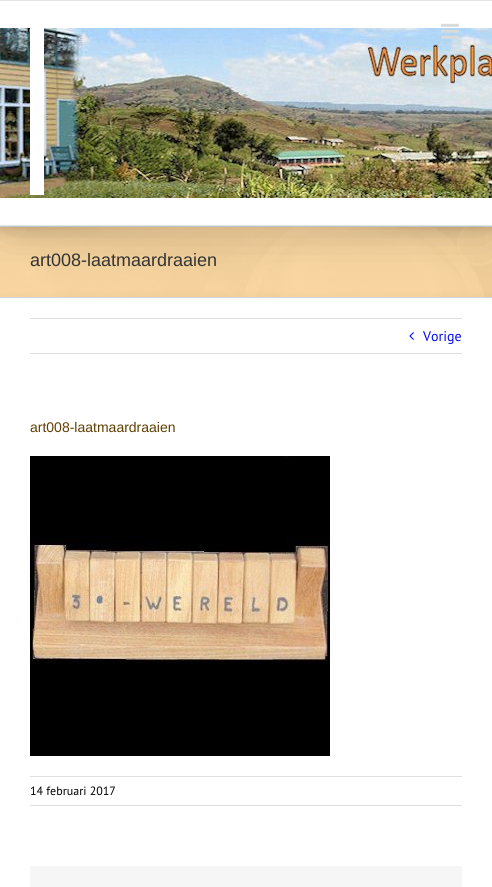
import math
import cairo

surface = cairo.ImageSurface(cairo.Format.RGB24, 492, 887)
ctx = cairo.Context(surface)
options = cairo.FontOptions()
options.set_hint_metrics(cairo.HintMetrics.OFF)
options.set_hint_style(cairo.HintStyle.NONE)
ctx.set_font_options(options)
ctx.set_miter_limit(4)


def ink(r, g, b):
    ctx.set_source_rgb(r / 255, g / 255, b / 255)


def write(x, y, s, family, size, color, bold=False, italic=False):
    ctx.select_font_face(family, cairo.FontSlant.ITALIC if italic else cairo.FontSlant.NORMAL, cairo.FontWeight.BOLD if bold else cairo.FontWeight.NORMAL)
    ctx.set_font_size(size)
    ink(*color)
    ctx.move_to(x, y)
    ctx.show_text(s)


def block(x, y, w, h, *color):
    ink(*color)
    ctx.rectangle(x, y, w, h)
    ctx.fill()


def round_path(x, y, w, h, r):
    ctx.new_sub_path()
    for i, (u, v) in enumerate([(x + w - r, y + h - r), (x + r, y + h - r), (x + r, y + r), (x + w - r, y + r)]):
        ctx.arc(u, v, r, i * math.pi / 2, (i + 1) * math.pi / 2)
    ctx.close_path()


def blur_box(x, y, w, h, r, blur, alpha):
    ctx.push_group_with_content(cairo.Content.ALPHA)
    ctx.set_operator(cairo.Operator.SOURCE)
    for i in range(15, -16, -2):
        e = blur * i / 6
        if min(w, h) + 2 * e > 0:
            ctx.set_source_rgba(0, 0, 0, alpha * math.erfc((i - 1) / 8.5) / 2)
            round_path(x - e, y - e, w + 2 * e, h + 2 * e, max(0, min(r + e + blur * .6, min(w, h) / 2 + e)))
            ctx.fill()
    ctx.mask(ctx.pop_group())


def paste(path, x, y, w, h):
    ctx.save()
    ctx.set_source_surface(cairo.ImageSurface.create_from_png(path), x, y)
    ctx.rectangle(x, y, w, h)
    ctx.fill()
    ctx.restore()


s1 = dict(family="Liberation Sans", size=18, color=(51, 51, 51))
s2 = dict(family="PT Sans", size=14, color=(0, 8, 244))
s3 = dict(family="Liberation Sans", size=14, color=(94, 62, 0))
s4 = dict(family="PT Sans", size=12, color=(0, 0, 0))

ink(255, 255, 255)
ctx.paint()
block(0, 227, 492, 70, 252, 188, 91)
paste("pic3.png", 0, 227, 492, 70)
block(0, 226, 492, 1, 210, 211, 212)
block(0, 297, 492, 1, 210, 211, 212)
ink(0, 0, 0)
blur_box(2, 12, 488, 222, 0, 25, 0.14)
block(0, 0, 492, 1, 229, 229, 229)
block(0, 1, 492, 224, 255, 255, 255)
paste("pic1.png", 0, 28, 492, 170)
block(0, 225, 492, 1, 229, 229, 229)
block(30, 28, 14, 167, 255, 255, 255)
paste("pic2.png", 441, 23, 18, 16)
write(30, 266, "art008-laatmaardraaien", **s1)
block(30, 318, 432, 1, 224, 222, 222)
block(30, 353, 432, 1, 224, 222, 222)
paste("pic4.png", 409, 332, 5, 8)
write(423, 341, "Vorige", **s2)
write(30, 432, "art008-laatmaardraaien", **s3)
paste("pic5.png", 30, 456, 300, 300)
block(30, 776, 432, 1, 224, 222, 222)
block(30, 805, 432, 1, 224, 222, 222)
write(30, 795, "14 februari 2017", **s4)
block(30, 866, 432, 21, 246, 246, 246)
surface.write_to_png("screenshot.png")
